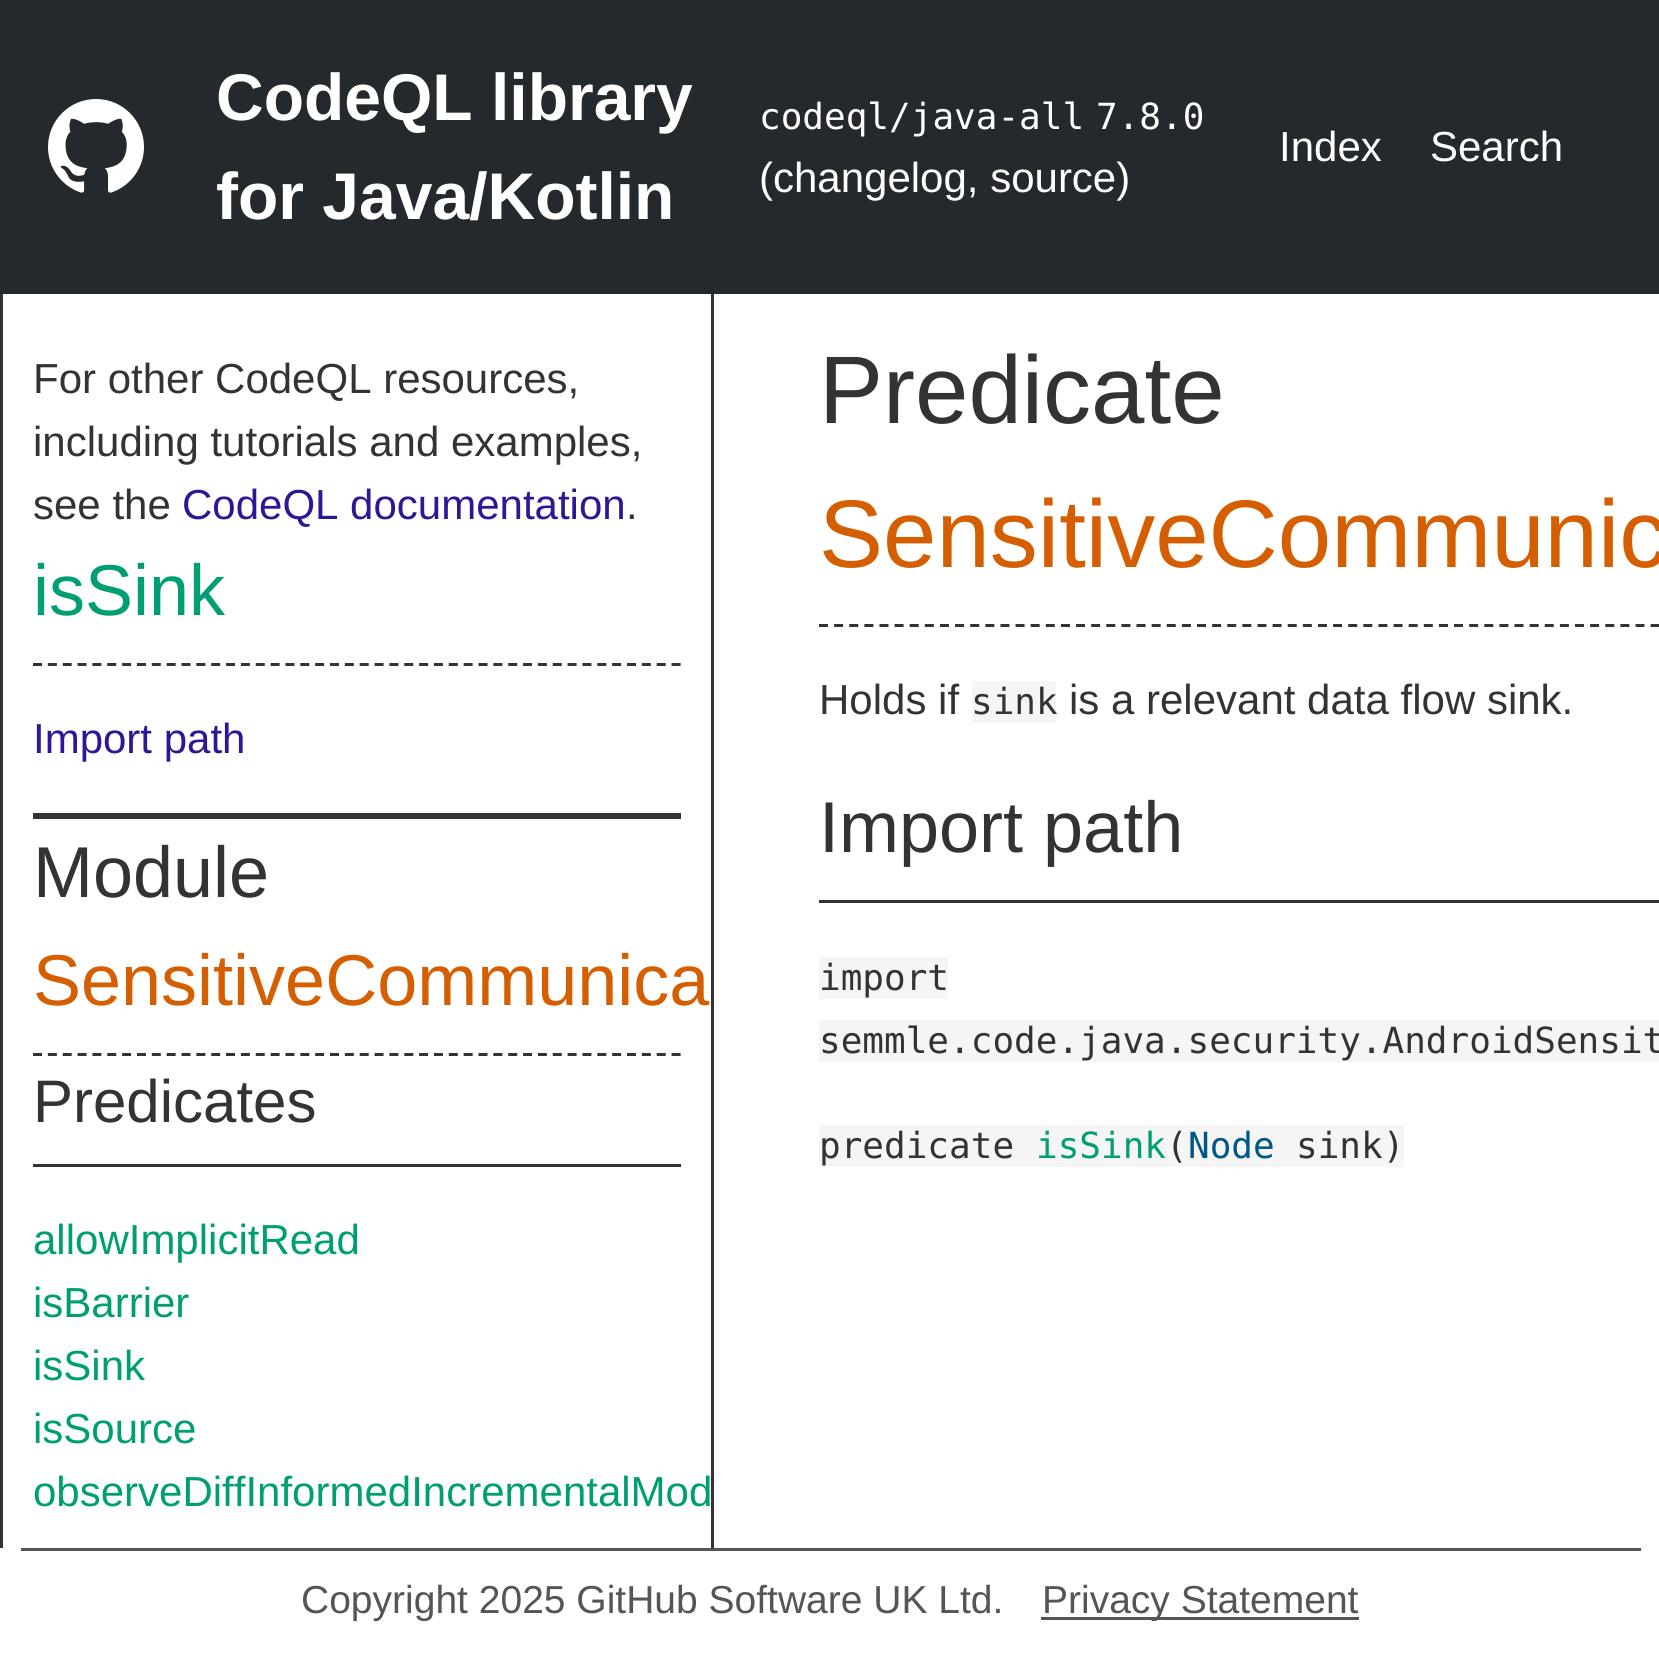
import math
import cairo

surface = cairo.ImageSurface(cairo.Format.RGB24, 1659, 1668)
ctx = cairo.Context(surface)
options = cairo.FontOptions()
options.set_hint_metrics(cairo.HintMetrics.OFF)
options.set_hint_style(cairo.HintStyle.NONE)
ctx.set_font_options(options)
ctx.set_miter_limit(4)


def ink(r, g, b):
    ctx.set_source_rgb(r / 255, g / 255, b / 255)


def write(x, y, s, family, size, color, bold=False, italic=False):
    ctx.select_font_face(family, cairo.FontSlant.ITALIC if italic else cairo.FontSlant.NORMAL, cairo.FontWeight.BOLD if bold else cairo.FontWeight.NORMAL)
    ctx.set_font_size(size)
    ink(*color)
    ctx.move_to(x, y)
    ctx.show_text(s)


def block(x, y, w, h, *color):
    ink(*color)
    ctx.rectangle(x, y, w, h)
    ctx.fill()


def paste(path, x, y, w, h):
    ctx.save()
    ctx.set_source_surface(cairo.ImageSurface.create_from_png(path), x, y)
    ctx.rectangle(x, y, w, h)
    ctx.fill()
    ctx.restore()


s1 = dict(family="Liberation Sans", size=66, color=(255, 255, 255), bold=True)
s2 = dict(family="DejaVu Sans Mono", size=36, color=(255, 255, 255))
s3 = dict(family="Liberation Sans", size=42, color=(255, 255, 255))
s4 = dict(family="Liberation Sans", size=42, color=(51, 51, 51))
s5 = dict(family="Liberation Sans", size=42, color=(47, 22, 149))
s6 = dict(family="Liberation Sans", size=72, color=(0, 158, 115))
s7 = dict(family="Liberation Sans", size=72, color=(51, 51, 51))
s8 = dict(family="Liberation Sans", size=72, color=(213, 94, 0))
s9 = dict(family="Liberation Sans", size=60, color=(51, 51, 51))
s10 = dict(family="Liberation Sans", size=42, color=(0, 158, 115))
s11 = dict(family="Liberation Sans", size=96, color=(51, 51, 51))
s12 = dict(family="Liberation Sans", size=96, color=(213, 94, 0))
s13 = dict(family="DejaVu Sans Mono", size=36, color=(51, 51, 51))
s14 = dict(family="DejaVu Sans Mono", size=36, color=(0, 158, 115))
s15 = dict(family="DejaVu Sans Mono", size=36, color=(0, 87, 136))
s16 = dict(family="Liberation Sans", size=39, color=(85, 85, 85))

ink(255, 255, 255)
ctx.paint()
block(0, 0, 1659, 294, 36, 41, 46)
paste("pic1.png", 48, 99, 96, 94)
write(216, 120, "CodeQL library", **s1)
write(216, 219, "for Java/Kotlin", **s1)
write(759, 129, "codeql/java-all", **s2)
write(1096, 129, "7.8.0", **s2)
write(759, 192, "(changelog, source)", **s3)
write(1279, 161, "Index", **s3)
write(1430, 161, "Search", **s3)
block(711, 294, 3, 1254, 51, 51, 51)
block(0, 294, 3, 1254, 51, 51, 51)
block(33, 813, 648, 6, 51, 51, 51)
write(33, 393, "For other CodeQL resources,", **s4)
write(33, 456, "including tutorials and examples,", **s4)
write(33, 519, "see the", **s4)
write(182, 519, "CodeQL documentation", **s5)
write(626, 519, ".", **s4)
ctx.new_path()
ctx.move_to(33, 664.5)
ctx.line_to(681, 664.5)
ctx.set_line_width(3)
ctx.set_dash([9, 5.85])
ctx.stroke()
write(33, 615, "isSink", **s6)
write(33, 753, "Import path", **s5)
ctx.new_path()
ctx.move_to(33, 1054.5)
ctx.line_to(681, 1054.5)
ink(51, 51, 51)
ctx.stroke()
write(33, 897, "Module", **s7)
write(33, 1005, "SensitiveCommunica", **s8)
block(33, 1164, 648, 3, 51, 51, 51)
write(33, 1122, "Predicates", **s9)
write(33, 1254, "allowImplicitRead", **s10)
write(33, 1317, "isBarrier", **s10)
write(33, 1380, "isSink", **s10)
write(33, 1443, "isSource", **s10)
write(33, 1506, "observeDiffInformedIncrementalMod", **s10)
ctx.new_path()
ctx.move_to(819, 625.5)
ctx.line_to(1659, 625.5)
ink(51, 51, 51)
ctx.set_dash([9, 6.12])
ctx.stroke()
write(819, 423, "Predicate", **s11)
write(819, 567, "SensitiveCommunic", **s12)
write(819, 714, "Holds if", **s4)
block(972, 681, 84, 42, 245, 245, 245)
write(971, 714, "sink", **s13)
write(1069, 714, "is a relevant data flow sink.", **s4)
block(819, 900, 840, 3, 51, 51, 51)
write(819, 852, "Import path", **s7)
block(819, 957, 129, 42, 245, 245, 245)
write(819, 990, "import", **s13)
block(819, 1020, 840, 42, 245, 245, 245)
write(819, 1053, "semmle.code.java.security.AndroidSensit", **s13)
block(819, 1125, 585, 42, 245, 245, 245)
write(819, 1158, "predicate", **s13)
write(1036, 1158, "isSink", **s14)
write(1166, 1158, "(", **s13)
write(1188, 1158, "Node", **s15)
write(1296, 1158, "sink)", **s13)
block(21, 1548, 1620, 3, 85, 85, 85)
write(301, 1613, "Copyright 2025 GitHub Software UK Ltd.", **s16)
block(1041, 1617, 318, 3, 85, 85, 85)
write(1042, 1613, "Privacy Statement", **s16)
surface.write_to_png("screenshot.png")
